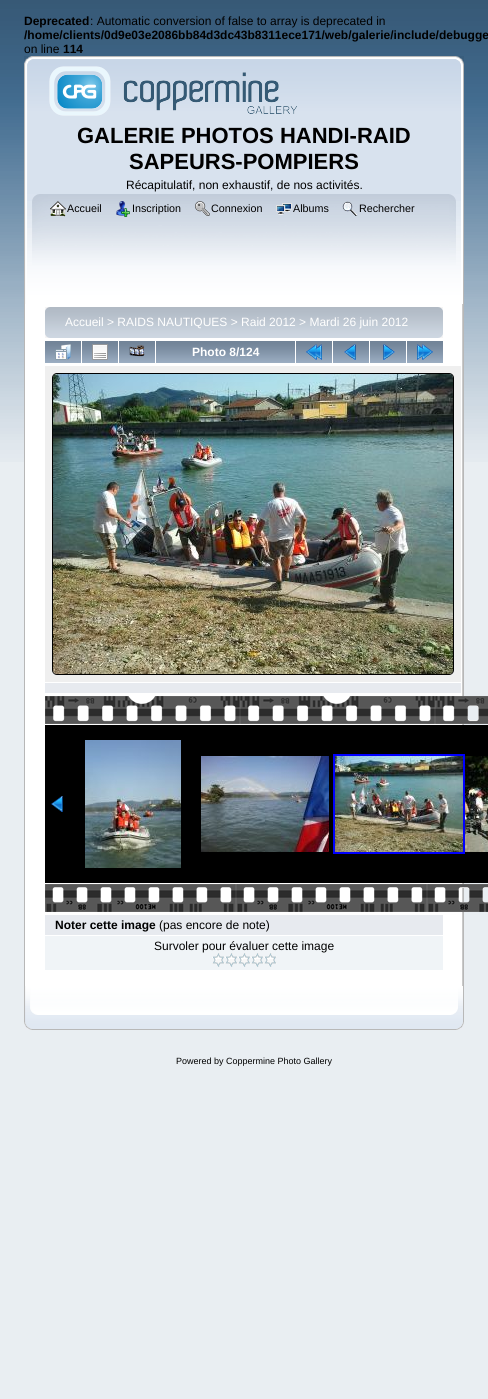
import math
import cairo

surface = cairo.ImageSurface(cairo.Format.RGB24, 488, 1399)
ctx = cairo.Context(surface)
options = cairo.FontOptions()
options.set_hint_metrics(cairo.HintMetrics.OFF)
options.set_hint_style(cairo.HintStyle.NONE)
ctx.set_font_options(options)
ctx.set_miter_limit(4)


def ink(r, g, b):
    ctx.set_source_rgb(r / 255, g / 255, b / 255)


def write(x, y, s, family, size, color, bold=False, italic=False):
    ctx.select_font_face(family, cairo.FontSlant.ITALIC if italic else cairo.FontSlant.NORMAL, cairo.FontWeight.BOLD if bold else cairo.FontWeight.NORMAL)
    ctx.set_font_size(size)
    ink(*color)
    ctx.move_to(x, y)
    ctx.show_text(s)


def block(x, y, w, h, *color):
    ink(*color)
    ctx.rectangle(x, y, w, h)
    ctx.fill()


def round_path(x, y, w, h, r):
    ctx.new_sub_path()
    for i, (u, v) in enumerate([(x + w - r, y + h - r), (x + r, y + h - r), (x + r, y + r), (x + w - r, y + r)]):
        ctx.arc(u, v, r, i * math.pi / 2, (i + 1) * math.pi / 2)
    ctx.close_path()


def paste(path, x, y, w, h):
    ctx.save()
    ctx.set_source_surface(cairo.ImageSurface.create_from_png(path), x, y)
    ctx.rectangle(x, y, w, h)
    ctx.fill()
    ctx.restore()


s1 = dict(family="Liberation Sans", size=12, color=(0, 0, 0), bold=True)
s2 = dict(family="Liberation Sans", size=12, color=(0, 0, 0))
s3 = dict(family="Liberation Sans", size=22, color=(0, 0, 0), bold=True)
s4 = dict(family="Liberation Sans", size=10.75, color=(0, 0, 0))
s5 = dict(family="Liberation Sans", size=12, color=(255, 255, 255))
s6 = dict(family="Liberation Sans", size=12, color=(255, 255, 255), bold=True)
s7 = dict(family="Liberation Sans", size=9, color=(0, 0, 0))

ink(233, 238, 242)
ctx.paint()
paste("pic1.png", 0, 0, 488, 462)
write(24, 25, "Deprecated", **s1)
write(90, 25, ": Automatic conversion of false to array is deprecated in", **s2)
write(24, 39, "/home/clients/0d9e03e2086bb84d3dc43b8311ece171/web/galerie/include/debugge", **s1)
write(24, 53, "on line", **s2)
write(63, 53, "114", **s1)
paste("pic2.png", 24, 56, 432, 138)
paste("pic3.png", 456, 56, 8, 138)
paste("pic4.png", 49, 66, 248, 50)
write(77, 143, "GALERIE PHOTOS HANDI-RAID", **s3)
write(129, 169, "SAPEURS-POMPIERS", **s3)
write(126, 189, "Récapitulatif, non exhaustif, de nos activités.", **s2)
paste("pic5.png", 24, 194, 425, 110)
paste("pic6.png", 449, 194, 15, 110)
paste("pic7.png", 50, 201, 16, 16)
write(67, 212, "Accueil", **s4)
paste("pic8.png", 116, 201, 14, 16)
write(132, 212, "Inscription", **s4)
paste("pic9.png", 195, 201, 15, 15)
write(211, 212, "Connexion", **s4)
paste("pic10.png", 276, 203, 16, 12)
write(293, 212, "Albums", **s4)
paste("pic11.png", 342, 201, 16, 15)
write(359, 212, "Rechercher", **s4)
block(25, 304, 437, 682, 255, 255, 255)
block(24, 304, 1, 682, 183, 183, 183)
paste("pic12.png", 462, 304, 2, 682)
paste("pic13.png", 45, 307, 393, 31)
paste("pic14.png", 438, 307, 5, 31)
write(65, 326, "Accueil > RAIDS NAUTIQUES > Raid 2012 > Mardi 26 juin 2012", **s5)
paste("pic15.png", 45, 341, 36, 22)
paste("pic16.png", 55, 344, 16, 16)
paste("pic15.png", 82, 341, 36, 22)
paste("pic17.png", 92, 344, 16, 16)
paste("pic15.png", 119, 341, 36, 22)
paste("pic18.png", 129, 345, 16, 12)
paste("pic19.png", 156, 341, 139, 22)
write(192, 356, "Photo 8/124", **s6)
paste("pic15.png", 296, 341, 36, 22)
paste("pic20.png", 306, 344, 16, 16)
paste("pic15.png", 333, 341, 36, 22)
paste("pic21.png", 344, 344, 12, 16)
paste("pic15.png", 370, 341, 36, 22)
paste("pic22.png", 383, 344, 12, 16)
paste("pic15.png", 407, 341, 36, 22)
paste("pic23.png", 417, 344, 16, 16)
block(45, 366, 416, 316, 239, 239, 239)
round_path(52.5, 373.5, 401, 301, 4.5)
ink(0, 0, 0)
ctx.set_line_width(1)
ctx.stroke()
paste("pic24.png", 53, 374, 400, 300)
block(45, 683, 416, 10, 231, 234, 239)
paste("pic25.png", 45, 696, 443, 28)
block(45, 725, 443, 158, 0, 0, 0)
paste("pic26.png", 51, 796, 12, 16)
paste("pic27.png", 85, 740, 96, 128)
paste("pic28.png", 201, 756, 128, 96)
ctx.rectangle(334, 755, 130, 98)
ink(0, 0, 255)
ctx.set_line_width(2)
ctx.stroke()
paste("pic29.png", 335, 756, 128, 96)
paste("pic30.png", 465, 756, 23, 96)
paste("pic31.png", 45, 884, 443, 28)
block(45, 915, 398, 20, 231, 234, 239)
write(55, 929, "Noter cette image", **s1)
write(159, 929, "(pas encore de note)", **s2)
block(45, 936, 398, 34, 240, 244, 247)
write(154, 950, "Survoler pour évaluer cette image", **s2)
paste("pic32.png", 212, 953, 13, 14)
paste("pic32.png", 225, 953, 13, 14)
paste("pic32.png", 238, 953, 13, 14)
paste("pic32.png", 251, 953, 13, 14)
paste("pic32.png", 264, 953, 13, 14)
paste("pic33.png", 24, 986, 427, 44)
paste("pic34.png", 451, 986, 13, 44)
write(176, 1064, "Powered by Coppermine Photo Gallery", **s7)
surface.write_to_png("screenshot.png")
